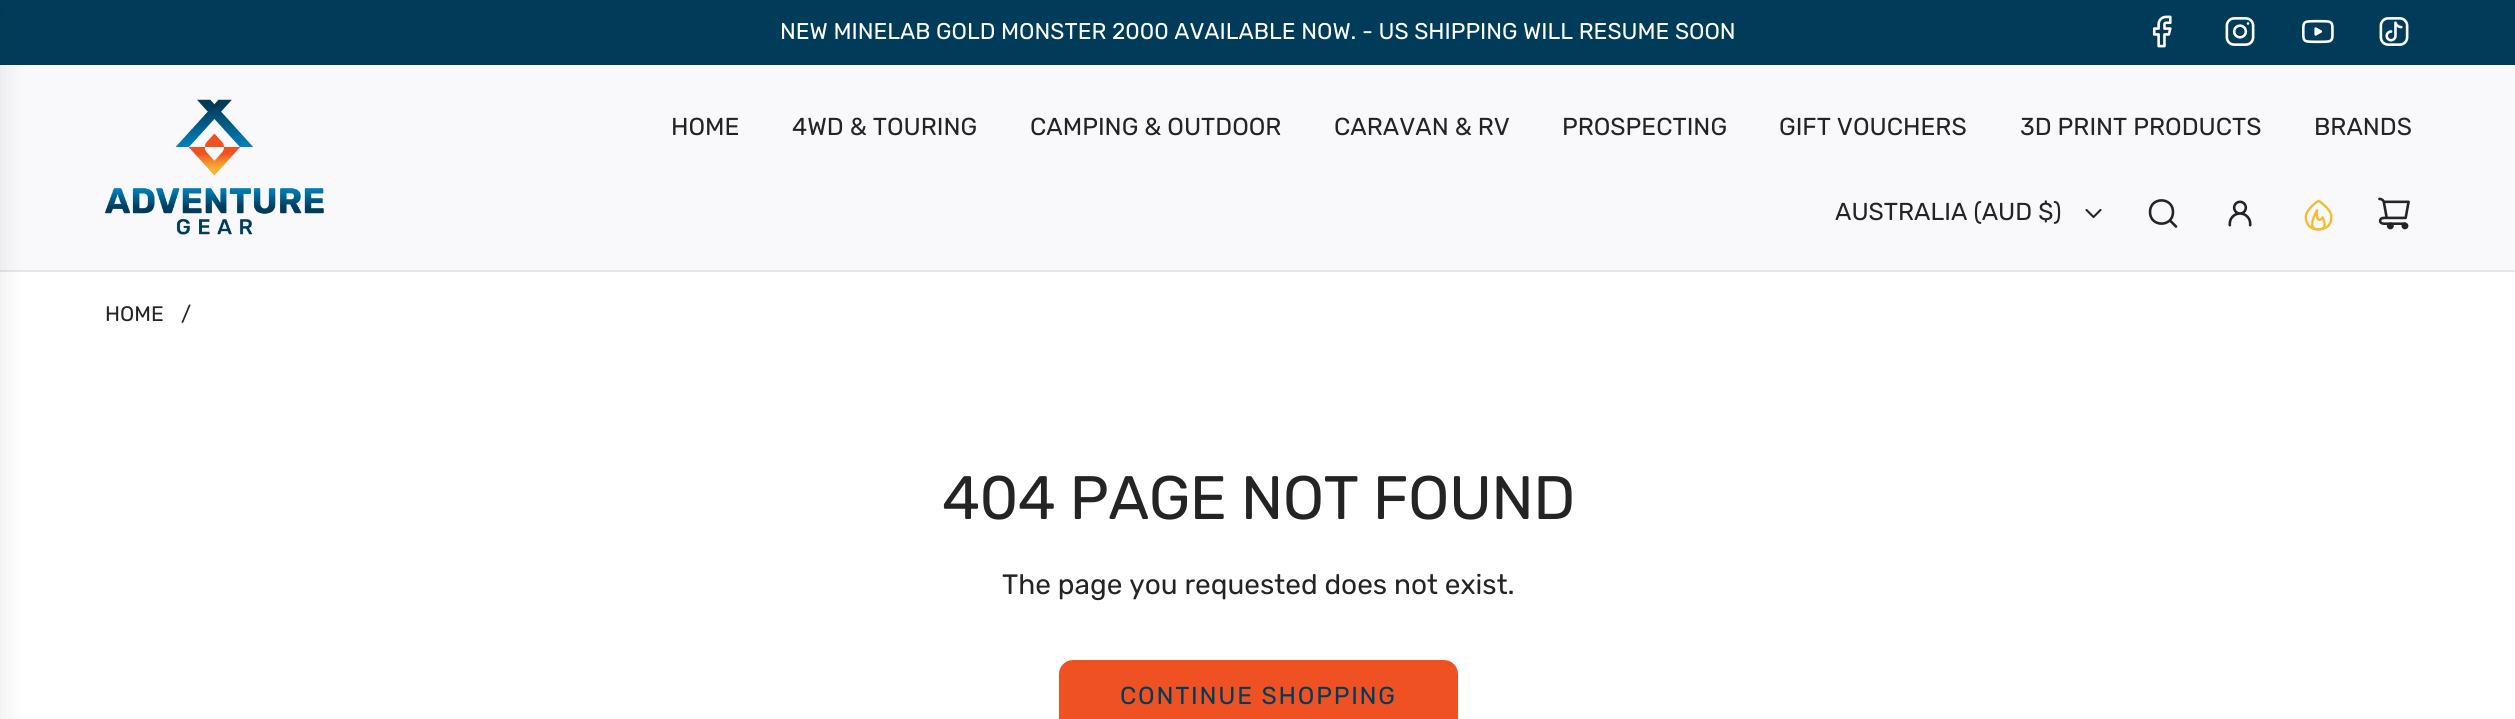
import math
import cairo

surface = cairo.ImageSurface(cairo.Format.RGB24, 2515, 719)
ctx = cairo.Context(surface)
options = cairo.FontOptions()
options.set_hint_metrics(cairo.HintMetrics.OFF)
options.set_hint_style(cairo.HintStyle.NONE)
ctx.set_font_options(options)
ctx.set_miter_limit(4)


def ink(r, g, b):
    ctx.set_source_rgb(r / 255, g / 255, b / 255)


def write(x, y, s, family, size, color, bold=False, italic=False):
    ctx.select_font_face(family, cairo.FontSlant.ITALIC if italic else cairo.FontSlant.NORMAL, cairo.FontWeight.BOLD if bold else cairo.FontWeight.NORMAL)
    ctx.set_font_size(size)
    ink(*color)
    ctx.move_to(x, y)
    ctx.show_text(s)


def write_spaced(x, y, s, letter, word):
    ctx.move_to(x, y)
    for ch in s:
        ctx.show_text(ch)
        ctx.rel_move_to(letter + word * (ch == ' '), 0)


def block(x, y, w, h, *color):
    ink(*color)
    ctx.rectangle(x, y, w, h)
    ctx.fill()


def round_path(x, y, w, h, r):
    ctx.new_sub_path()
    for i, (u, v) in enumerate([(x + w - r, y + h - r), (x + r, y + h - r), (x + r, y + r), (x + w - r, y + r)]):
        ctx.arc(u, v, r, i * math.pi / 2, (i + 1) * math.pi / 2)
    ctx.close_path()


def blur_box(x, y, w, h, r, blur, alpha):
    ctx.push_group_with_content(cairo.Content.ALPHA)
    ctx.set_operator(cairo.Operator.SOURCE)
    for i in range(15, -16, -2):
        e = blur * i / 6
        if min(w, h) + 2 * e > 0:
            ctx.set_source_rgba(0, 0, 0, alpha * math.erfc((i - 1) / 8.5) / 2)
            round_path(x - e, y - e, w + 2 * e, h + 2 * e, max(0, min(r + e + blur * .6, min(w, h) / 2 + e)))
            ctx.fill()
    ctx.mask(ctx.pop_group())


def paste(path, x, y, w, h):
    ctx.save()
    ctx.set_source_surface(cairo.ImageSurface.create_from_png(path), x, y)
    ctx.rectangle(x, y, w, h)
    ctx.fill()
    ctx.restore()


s1 = dict(family="Rubik", size=22.75, color=(255, 255, 255))
s2 = dict(family="Rubik", size=24.5, color=(36, 36, 36))
s3 = dict(family="Rubik", size=21, color=(36, 36, 36))
s4 = dict(family="Rubik", size=28, color=(36, 36, 36))

ink(255, 255, 255)
ctx.paint()
block(0, 0, 2515, 65, 0, 60, 90)
write(780, 39, "NEW MINELAB GOLD MONSTER 2000 AVAILABLE NOW. - US SHIPPING WILL RESUME SOON", **s1)
paste("pic1.png", 2152, 15, 20, 33)
paste("pic2.png", 2225, 17, 30, 29)
paste("pic3.png", 2302, 19, 32, 25)
paste("pic4.png", 2379, 17, 30, 29)
block(0, 65, 2515, 205, 249, 249, 251)
block(0, 270, 2515, 2, 230, 229, 231)
ink(0, 0, 0)
blur_box(-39, 9, 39, 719, 0, 13, 0.1)
paste("pic5.png", 105, 99, 219, 136)
write(671, 135, "HOME", **s2)
write(792, 135, "4WD & TOURING", **s2)
write(1030, 135, "CAMPING & OUTDOOR", **s2)
write(1334, 135, "CARAVAN & RV", **s2)
write(1562, 135, "PROSPECTING", **s2)
write(1779, 135, "GIFT VOUCHERS", **s2)
write(2020, 135, "3D PRINT PRODUCTS", **s2)
write(2314, 135, "BRANDS", **s2)
write(1835, 220, "AUSTRALIA (AUD $)", **s2)
ctx.new_path()
ctx.move_to(2086.5, 210)
ctx.line_to(2093.5, 217)
ctx.line_to(2100.5, 210)
ctx.set_line_width(2.1)
ctx.set_line_cap(cairo.LineCap.ROUND)
ctx.set_line_join(cairo.LineJoin.ROUND)
ctx.stroke()
ctx.new_path()
ctx.move_to(2170.5, 221)
ctx.line_to(2176, 226.5)
ctx.move_to(2150, 212)
ctx.curve_to(2150, 227.5, 2173, 227.5, 2173, 212)
ctx.curve_to(2173, 196.5, 2150, 196.5, 2150, 212)
ctx.close_path()
ctx.set_line_width(2.6)
ctx.stroke()
paste("pic6.png", 2228, 200, 24, 27)
paste("pic7.png", 2304, 199, 29, 32)
paste("pic8.png", 2378, 197, 32, 33)
write(105, 321, "HOME", **s3)
write(181, 321, "/", **s3)
ctx.set_font_size(61.25)
write_spaced(942, 519, "404 PAGE NOT FOUND", -0.6, 0)
write(1002, 594, "The page you requested does not exist.", **s4)
ink(240, 81, 35)
round_path(1059, 660, 399, 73, 14)
ctx.fill()
ctx.set_font_size(24.5)
ink(0, 60, 90)
write_spaced(1120, 704, "CONTINUE SHOPPING", 1.75, 0)
surface.write_to_png("screenshot.png")
